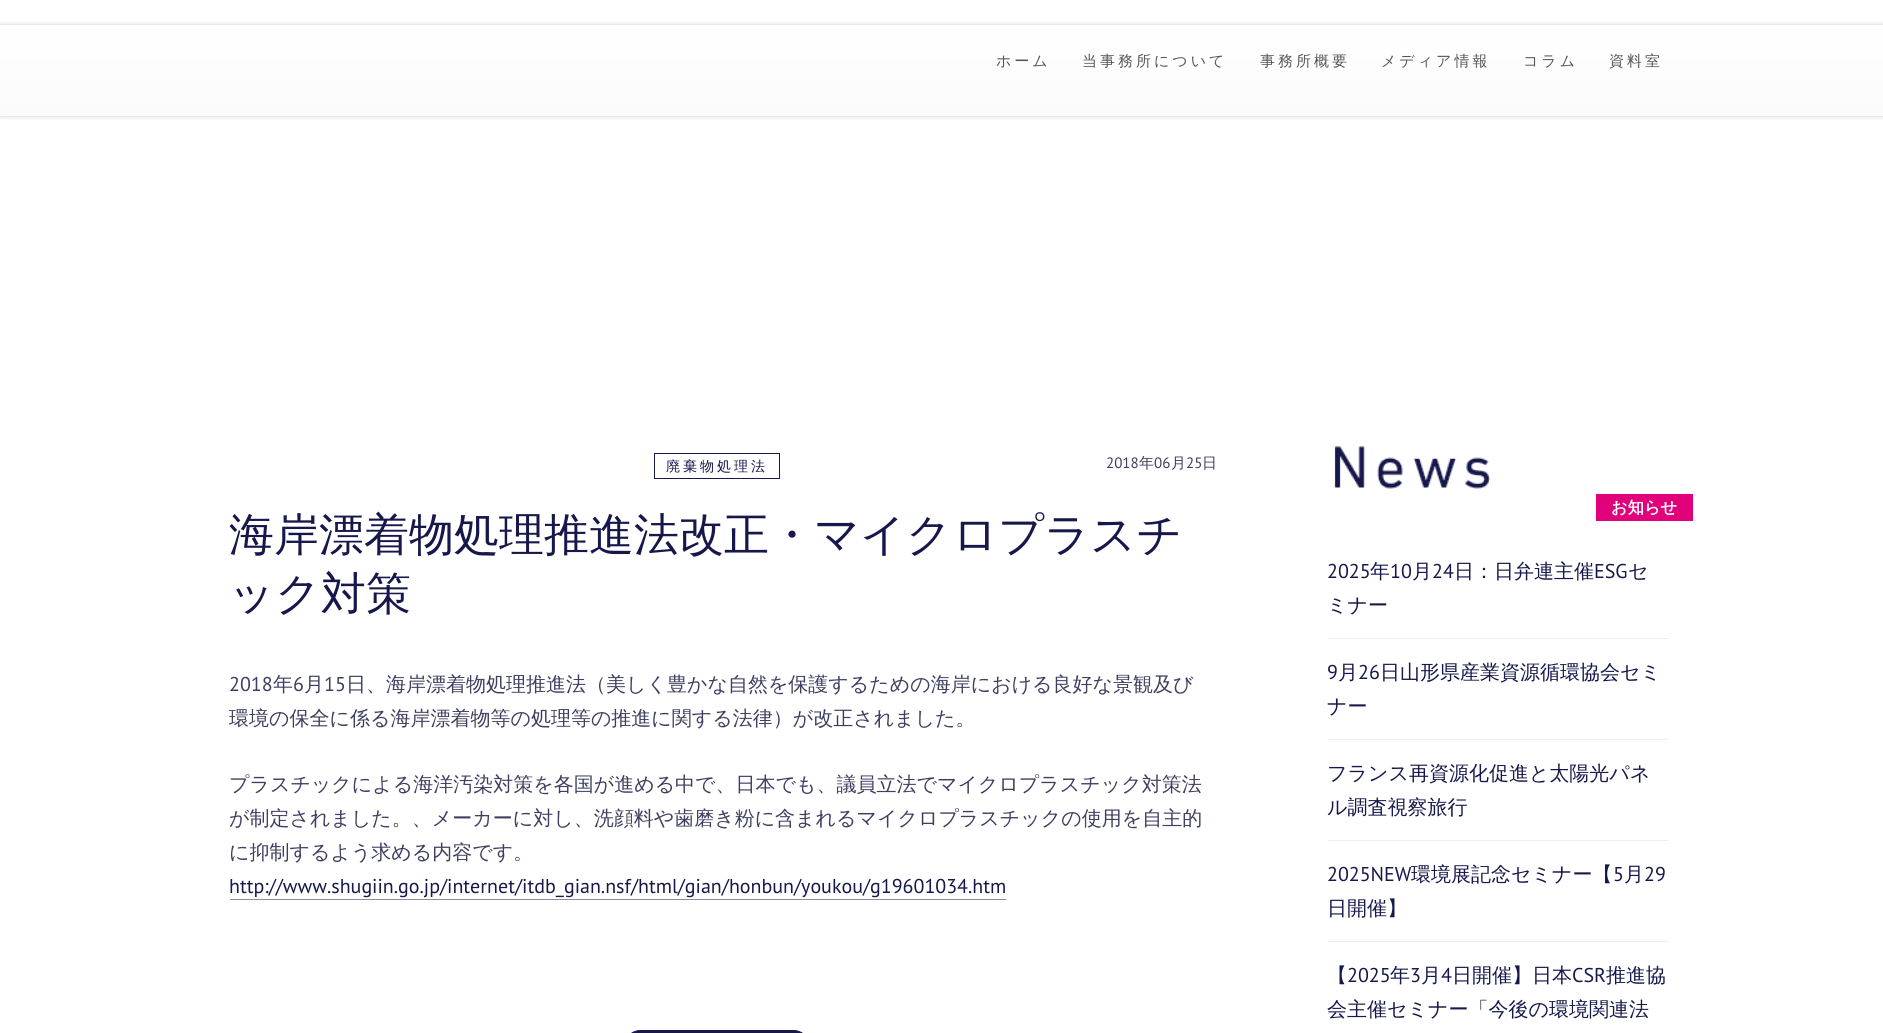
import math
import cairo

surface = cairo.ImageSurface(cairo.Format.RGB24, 1883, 1033)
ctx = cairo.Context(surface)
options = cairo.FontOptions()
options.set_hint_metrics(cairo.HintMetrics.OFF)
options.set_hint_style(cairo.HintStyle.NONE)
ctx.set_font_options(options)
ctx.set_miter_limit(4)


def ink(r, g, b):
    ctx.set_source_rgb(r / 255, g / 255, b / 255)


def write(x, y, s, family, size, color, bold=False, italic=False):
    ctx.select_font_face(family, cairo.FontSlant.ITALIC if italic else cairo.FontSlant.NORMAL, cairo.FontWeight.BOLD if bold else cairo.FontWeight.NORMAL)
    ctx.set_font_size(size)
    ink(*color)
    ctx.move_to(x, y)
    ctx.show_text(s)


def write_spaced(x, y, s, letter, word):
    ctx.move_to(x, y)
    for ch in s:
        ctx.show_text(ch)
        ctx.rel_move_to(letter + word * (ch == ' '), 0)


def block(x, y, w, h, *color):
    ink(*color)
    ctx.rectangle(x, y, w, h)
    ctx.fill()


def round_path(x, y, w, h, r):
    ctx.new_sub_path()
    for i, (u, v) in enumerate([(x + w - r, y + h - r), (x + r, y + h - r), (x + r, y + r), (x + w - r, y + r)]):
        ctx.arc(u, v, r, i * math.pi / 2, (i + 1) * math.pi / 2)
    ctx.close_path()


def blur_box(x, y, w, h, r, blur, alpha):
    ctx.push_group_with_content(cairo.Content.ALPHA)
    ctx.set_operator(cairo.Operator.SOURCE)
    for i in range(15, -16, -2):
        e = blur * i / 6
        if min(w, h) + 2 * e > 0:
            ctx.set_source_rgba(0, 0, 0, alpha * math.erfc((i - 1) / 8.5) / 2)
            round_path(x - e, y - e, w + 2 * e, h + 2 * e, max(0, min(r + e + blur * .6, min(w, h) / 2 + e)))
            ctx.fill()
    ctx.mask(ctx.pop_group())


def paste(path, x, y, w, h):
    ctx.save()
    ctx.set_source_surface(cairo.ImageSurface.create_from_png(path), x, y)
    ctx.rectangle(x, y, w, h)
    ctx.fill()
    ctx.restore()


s1 = dict(family="PT Sans", size=15, color=(62, 63, 96))
s2 = dict(family="WenQuanYi Zen Hei Medium", size=15, color=(62, 63, 96))
s3 = dict(family="WenQuanYi Zen Hei Medium", size=45, color=(22, 24, 75))
s4 = dict(family="PT Sans", size=20, color=(62, 63, 96))
s5 = dict(family="WenQuanYi Zen Hei Medium", size=20, color=(62, 63, 96))
s6 = dict(family="PT Sans", size=20, color=(22, 24, 75))
s7 = dict(family="WenQuanYi Zen Hei", size=16.25, color=(255, 255, 255), bold=True)
s8 = dict(family="WenQuanYi Zen Hei Medium", size=20, color=(22, 24, 75))

ink(255, 255, 255)
ctx.paint()
ink(80, 80, 106)
blur_box(0, 25, 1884, 91, 0, 2.5, 0.3)
gradient = cairo.LinearGradient(942, 25, 942, 116)
gradient.add_color_stop_rgba(0, 1, 1, 1, 1)
gradient.add_color_stop_rgba(1, 0.984, 0.984, 0.988, 1)
ctx.set_source(gradient)
ctx.rectangle(0, 25, 1883, 91)
ctx.fill()
ctx.select_font_face("WenQuanYi Zen Hei Medium")
ctx.set_font_size(15)
ink(85, 85, 85)
write_spaced(996, 66, "ホーム", 3, 0)
write_spaced(1082, 66, "当事務所について", 3, 0)
write_spaced(1260, 66, "事務所概要", 3, 0)
write_spaced(1381, 66, "メディア情報", 3, 0)
write_spaced(1523, 66, "コラム", 3, 0)
write_spaced(1609, 66, "資料室", 3, 0)
write(1106, 468, "2018", **s1)
write(1139, 468, "年", **s2)
write(1154, 468, "06", **s1)
write(1171, 468, "月", **s2)
write(1186, 468, "25", **s1)
write(1202, 468, "日", **s2)
write(229, 550, "海岸漂着物処理推進法改正・マイクロプラスチ", **s3)
write(229, 609, "ック対策", **s3)
ctx.rectangle(654.5, 453.5, 125, 25)
ctx.set_line_width(1)
ctx.stroke()
ctx.set_font_size(14)
write_spaced(666, 471, "廃棄物処理法", 3, 0)
write(229, 691, "2018", **s4)
write(273, 691, "年", **s5)
write(293, 691, "6", **s4)
write(304, 691, "月", **s5)
write(324, 691, "15", **s4)
write(346, 691, "日、海岸漂着物処理推進法（美しく豊かな自然を保護するための海岸における良好な景観及び", **s5)
write(229, 725, "環境の保全に係る海岸漂着物等の処理等の推進に関する法律）が改正されました。", **s5)
write(229, 791, "プラスチックによる海洋汚染対策を各国が進める中で、日本でも、議員立法でマイクロプラスチック対策法", **s5)
write(229, 825, "が制定されました。、メーカーに対し、洗顔料や歯磨き粉に含まれるマイクロプラスチックの使用を自主的", **s5)
write(229, 859, "に抑制するよう求める内容です。", **s5)
write(229, 893, "http://www.shugiin.go.jp/internet/itdb_gian.nsf/html/gian/honbun/youkou/g19601034.htm", **s6)
block(230, 899, 776, 1, 138, 139, 166)
ink(22, 24, 75)
round_path(624.5, 1030.5, 185, 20, 16)
ctx.fill_preserve()
ctx.stroke()
paste("pic1.png", 1334, 446, 157, 43)
block(1596, 494, 97, 27, 225, 1, 123)
write(1611, 513, "お知らせ", **s7)
write(1327, 578, "2025", **s6)
write(1370, 578, "年", **s8)
write(1390, 578, "10", **s6)
write(1412, 578, "月", **s8)
write(1432, 578, "24", **s6)
write(1454, 578, "日：日弁連主催", **s8)
write(1594, 578, "ESG", **s6)
write(1628, 578, "セ", **s8)
write(1327, 612, "ミナー", **s8)
block(1328, 638, 340, 1, 238, 238, 238)
write(1327, 679, "9", **s6)
write(1338, 679, "月", **s8)
write(1358, 679, "26", **s6)
write(1380, 679, "日山形県産業資源循環協会セミ", **s8)
write(1327, 713, "ナー", **s8)
block(1328, 739, 340, 1, 238, 238, 238)
write(1327, 780, "フランス再資源化促進と太陽光パネ", **s8)
write(1327, 814, "ル調査視察旅行", **s8)
block(1328, 840, 340, 1, 238, 238, 238)
write(1327, 881, "2025NEW", **s6)
write(1411, 881, "環境展記念セミナー【", **s8)
write(1613, 881, "5", **s6)
write(1624, 881, "月", **s8)
write(1644, 881, "29", **s6)
write(1327, 915, "日開催】", **s8)
block(1328, 941, 340, 1, 238, 238, 238)
write(1327, 982, "【", **s8)
write(1347, 982, "2025", **s6)
write(1390, 982, "年", **s8)
write(1410, 982, "3", **s6)
write(1421, 982, "月", **s8)
write(1441, 982, "4", **s6)
write(1452, 982, "日開催】日本", **s8)
write(1572, 982, "CSR", **s6)
write(1606, 982, "推進協", **s8)
write(1327, 1016, "会主催セミナー「今後の環境関連法", **s8)
surface.write_to_png("screenshot.png")
